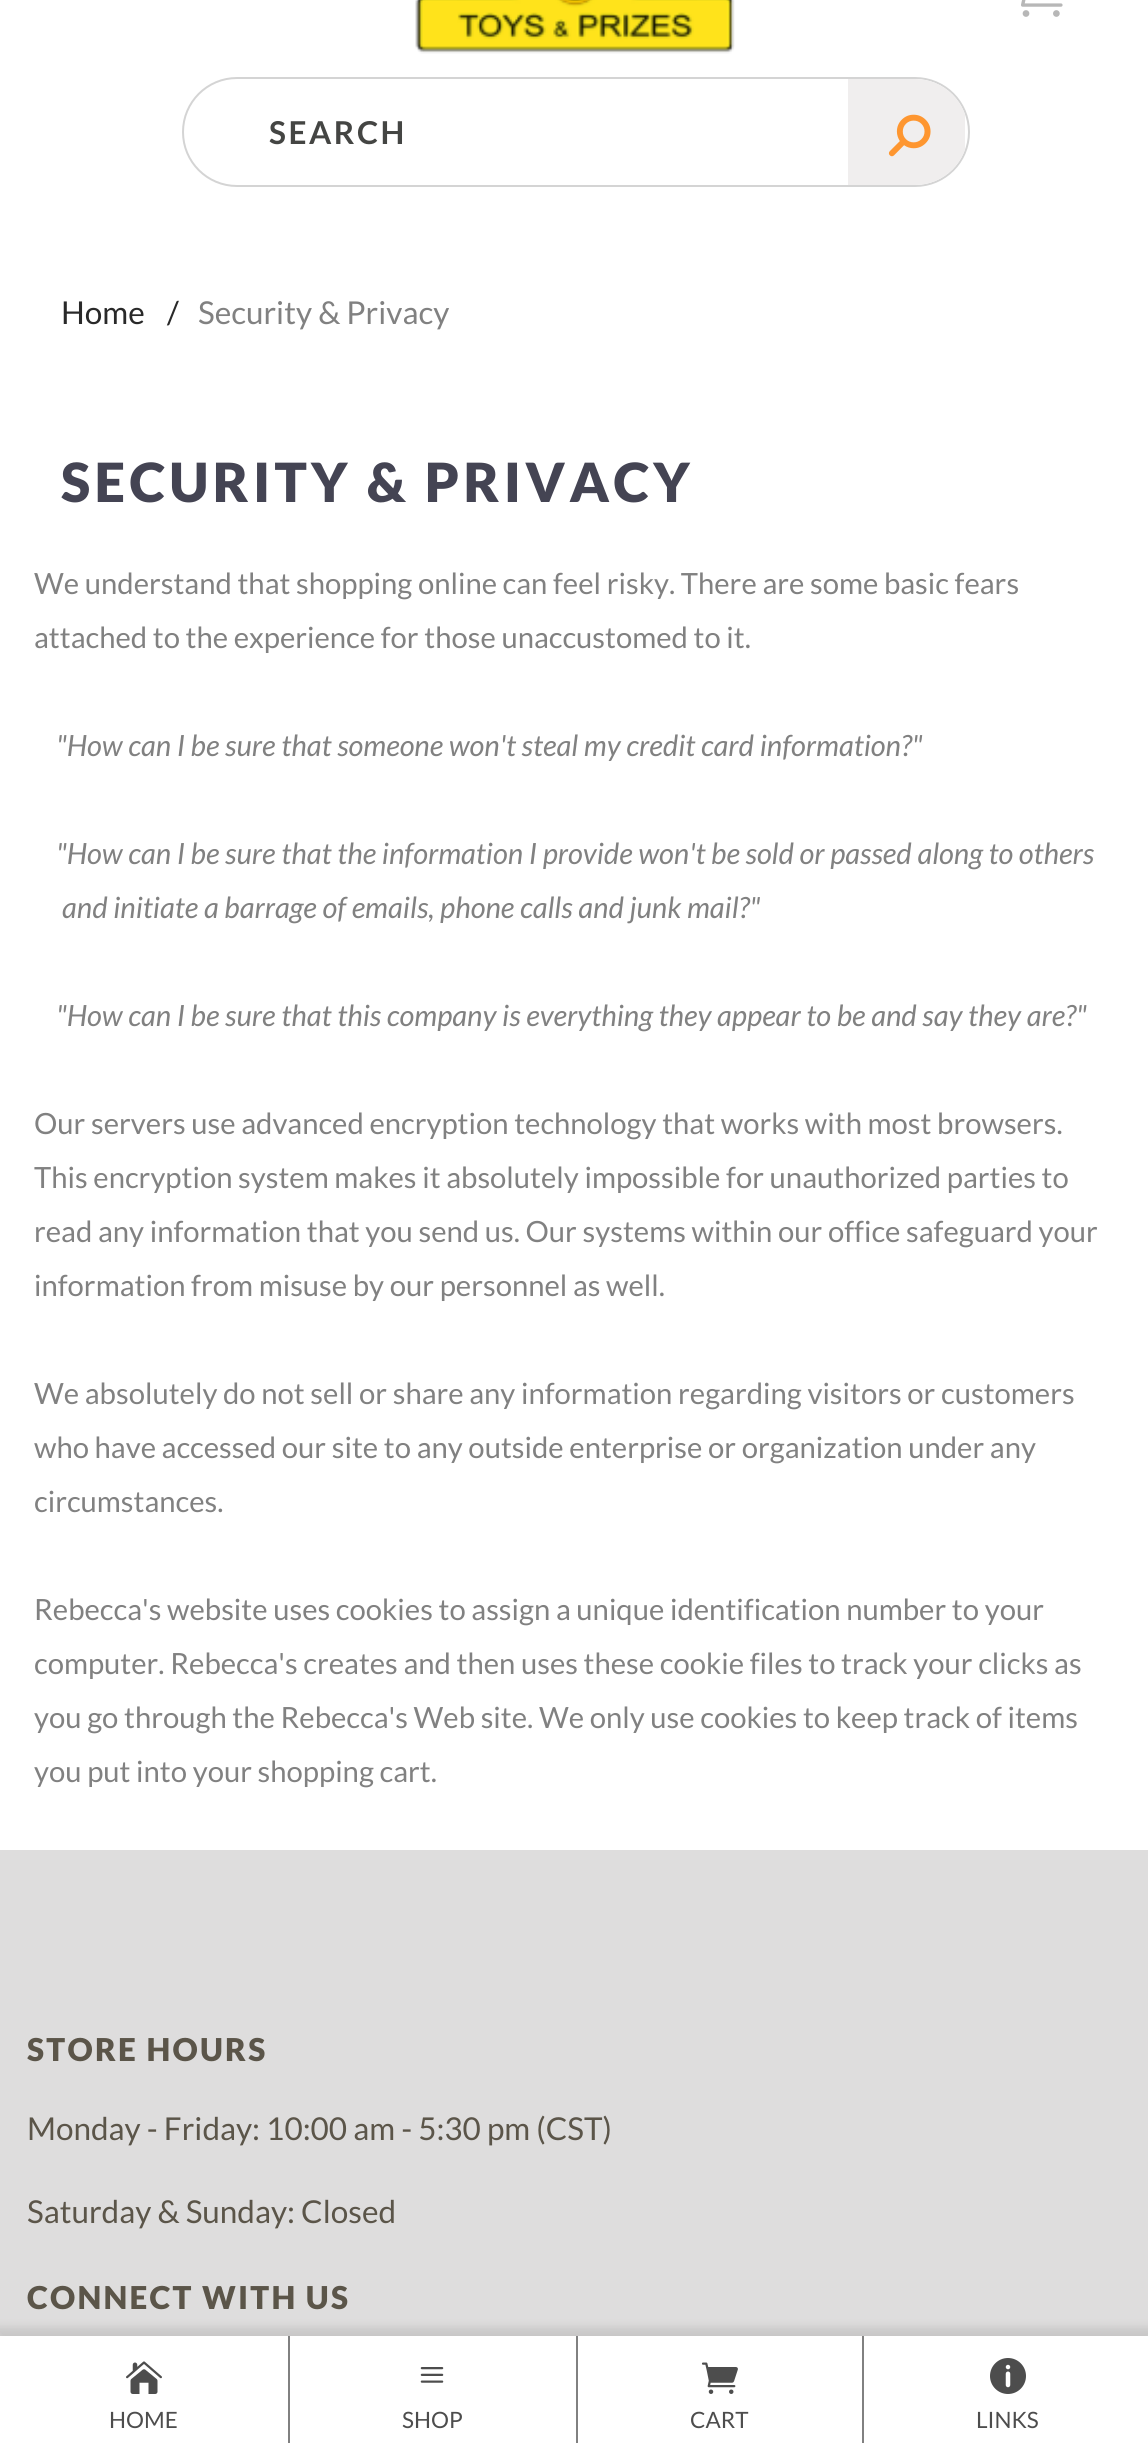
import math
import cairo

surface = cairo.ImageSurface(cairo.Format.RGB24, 1148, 2443)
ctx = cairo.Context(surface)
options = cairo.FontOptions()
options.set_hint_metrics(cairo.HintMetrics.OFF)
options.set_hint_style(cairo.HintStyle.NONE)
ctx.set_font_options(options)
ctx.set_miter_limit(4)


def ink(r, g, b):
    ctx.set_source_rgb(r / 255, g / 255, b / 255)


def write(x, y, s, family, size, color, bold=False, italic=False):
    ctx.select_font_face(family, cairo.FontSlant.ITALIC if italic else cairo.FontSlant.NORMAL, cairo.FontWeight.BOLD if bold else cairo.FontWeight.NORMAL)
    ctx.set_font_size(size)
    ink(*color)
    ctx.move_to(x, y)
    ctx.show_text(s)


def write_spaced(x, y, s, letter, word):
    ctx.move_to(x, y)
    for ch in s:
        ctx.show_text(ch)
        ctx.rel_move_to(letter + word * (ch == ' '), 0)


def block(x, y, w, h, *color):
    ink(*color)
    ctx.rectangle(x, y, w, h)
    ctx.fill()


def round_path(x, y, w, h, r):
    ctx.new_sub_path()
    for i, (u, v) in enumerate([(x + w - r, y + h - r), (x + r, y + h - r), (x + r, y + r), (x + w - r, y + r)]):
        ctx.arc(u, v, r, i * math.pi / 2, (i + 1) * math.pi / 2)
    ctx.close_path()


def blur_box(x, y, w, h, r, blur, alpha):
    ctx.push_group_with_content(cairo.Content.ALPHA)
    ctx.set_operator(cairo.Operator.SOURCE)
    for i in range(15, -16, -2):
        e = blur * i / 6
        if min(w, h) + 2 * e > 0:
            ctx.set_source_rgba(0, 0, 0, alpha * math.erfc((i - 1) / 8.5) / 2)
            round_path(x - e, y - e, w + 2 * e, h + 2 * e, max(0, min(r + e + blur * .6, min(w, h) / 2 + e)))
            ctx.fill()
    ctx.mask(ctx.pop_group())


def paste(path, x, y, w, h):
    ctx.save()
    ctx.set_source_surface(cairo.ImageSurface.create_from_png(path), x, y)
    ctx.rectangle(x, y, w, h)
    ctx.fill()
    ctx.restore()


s1 = dict(family="Lato", size=31.5, color=(41, 41, 41))
s2 = dict(family="Lato", size=31.5, color=(129, 129, 129))
s3 = dict(family="Lato", size=29.25, color=(129, 129, 129))
s4 = dict(family="Lato", size=29.25, color=(129, 129, 129), italic=True)
s5 = dict(family="Lato", size=31.5, color=(91, 85, 73))
s6 = dict(family="Lato", size=22.5, color=(77, 77, 77))

ink(255, 255, 255)
ctx.paint()
paste("pic1.png", 415, 0, 320, 54)
paste("pic2.png", 1021, 0, 42, 17)
round_path(183, 78, 786, 108, 54)
ink(212, 212, 212)
ctx.stroke()
ctx.select_font_face("Lato", cairo.FontSlant.NORMAL, cairo.FontWeight.BOLD)
ctx.set_font_size(31.5)
ink(68, 69, 67)
write_spaced(269, 144, "SEARCH", 2.5, 0)
ctx.save()
round_path(185, 79, 783, 106, 53)
ctx.clip()
block(848, 79, 117, 106, 240, 238, 238)
ctx.restore()
paste("pic3.png", 888, 114, 43, 43)
write(61, 324, "Home", **s1)
write(167, 324, "/", **s1)
write(198, 324, "Security & Privacy", **s2)
ctx.select_font_face("Lato Black")
ctx.set_font_size(54)
ink(68, 68, 83)
write_spaced(61, 502, "SECURITY & PRIVACY", 4.3, 0)
write(34, 594, "We understand that shopping online can feel risky. There are some basic fears", **s3)
write(34, 648, "attached to the experience for those unaccustomed to it.", **s3)
write(56, 756, "\"How can I be sure that someone won't steal my credit card information?\"", **s4)
write(56, 864, "\"How can I be sure that the information I provide won't be sold or passed along to others", **s4)
write(62, 918, "and initiate a barrage of emails, phone calls and junk mail?\"", **s4)
write(56, 1026, "\"How can I be sure that this company is everything they appear to be and say they are?\"", **s4)
write(34, 1134, "Our servers use advanced encryption technology that works with most browsers.", **s3)
write(34, 1188, "This encryption system makes it absolutely impossible for unauthorized parties to", **s3)
write(34, 1242, "read any information that you send us. Our systems within our office safeguard your", **s3)
write(34, 1296, "information from misuse by our personnel as well.", **s3)
write(34, 1404, "We absolutely do not sell or share any information regarding visitors or customers", **s3)
write(34, 1458, "who have accessed our site to any outside enterprise or organization under any", **s3)
write(34, 1512, "circumstances.", **s3)
write(34, 1620, "Rebecca's website uses cookies to assign a unique identification number to your", **s3)
write(34, 1674, "computer. Rebecca's creates and then uses these cookie files to track your clicks as", **s3)
write(34, 1728, "you go through the Rebecca's Web site. We only use cookies to keep track of items", **s3)
write(34, 1782, "you put into your shopping cart.", **s3)
block(0, 1850, 1148, 486, 222, 221, 221)
ctx.select_font_face("Lato Black")
ctx.set_font_size(31.5)
ink(91, 85, 73)
write_spaced(27, 2061, "STORE HOURS", 2.25, 0)
write(27, 2140, "Monday - Friday: 10:00 am - 5:30 pm (CST)", **s5)
write(27, 2223, "Saturday & Sunday: Closed", **s5)
ctx.select_font_face("Lato Black")
write_spaced(27, 2309, "CONNECT WITH US", 2.25, 0)
ink(0, 0, 0)
blur_box(-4, 2327, 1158, 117, 0, 4.5, 0.1)
block(0, 2336, 1148, 107, 255, 255, 255)
paste("pic4.png", 126, 2361, 36, 33)
write(109, 2428, "HOME", **s6)
block(288, 2336, 2, 107, 129, 129, 129)
paste("pic5.png", 420, 2367, 24, 16)
write(402, 2428, "SHOP", **s6)
block(576, 2336, 2, 107, 129, 129, 129)
paste("pic6.png", 701, 2362, 37, 32)
write(690, 2428, "CART", **s6)
block(862, 2336, 2, 107, 129, 129, 129)
paste("pic7.png", 990, 2358, 36, 36)
write(976, 2428, "LINKS", **s6)
surface.write_to_png("screenshot.png")
